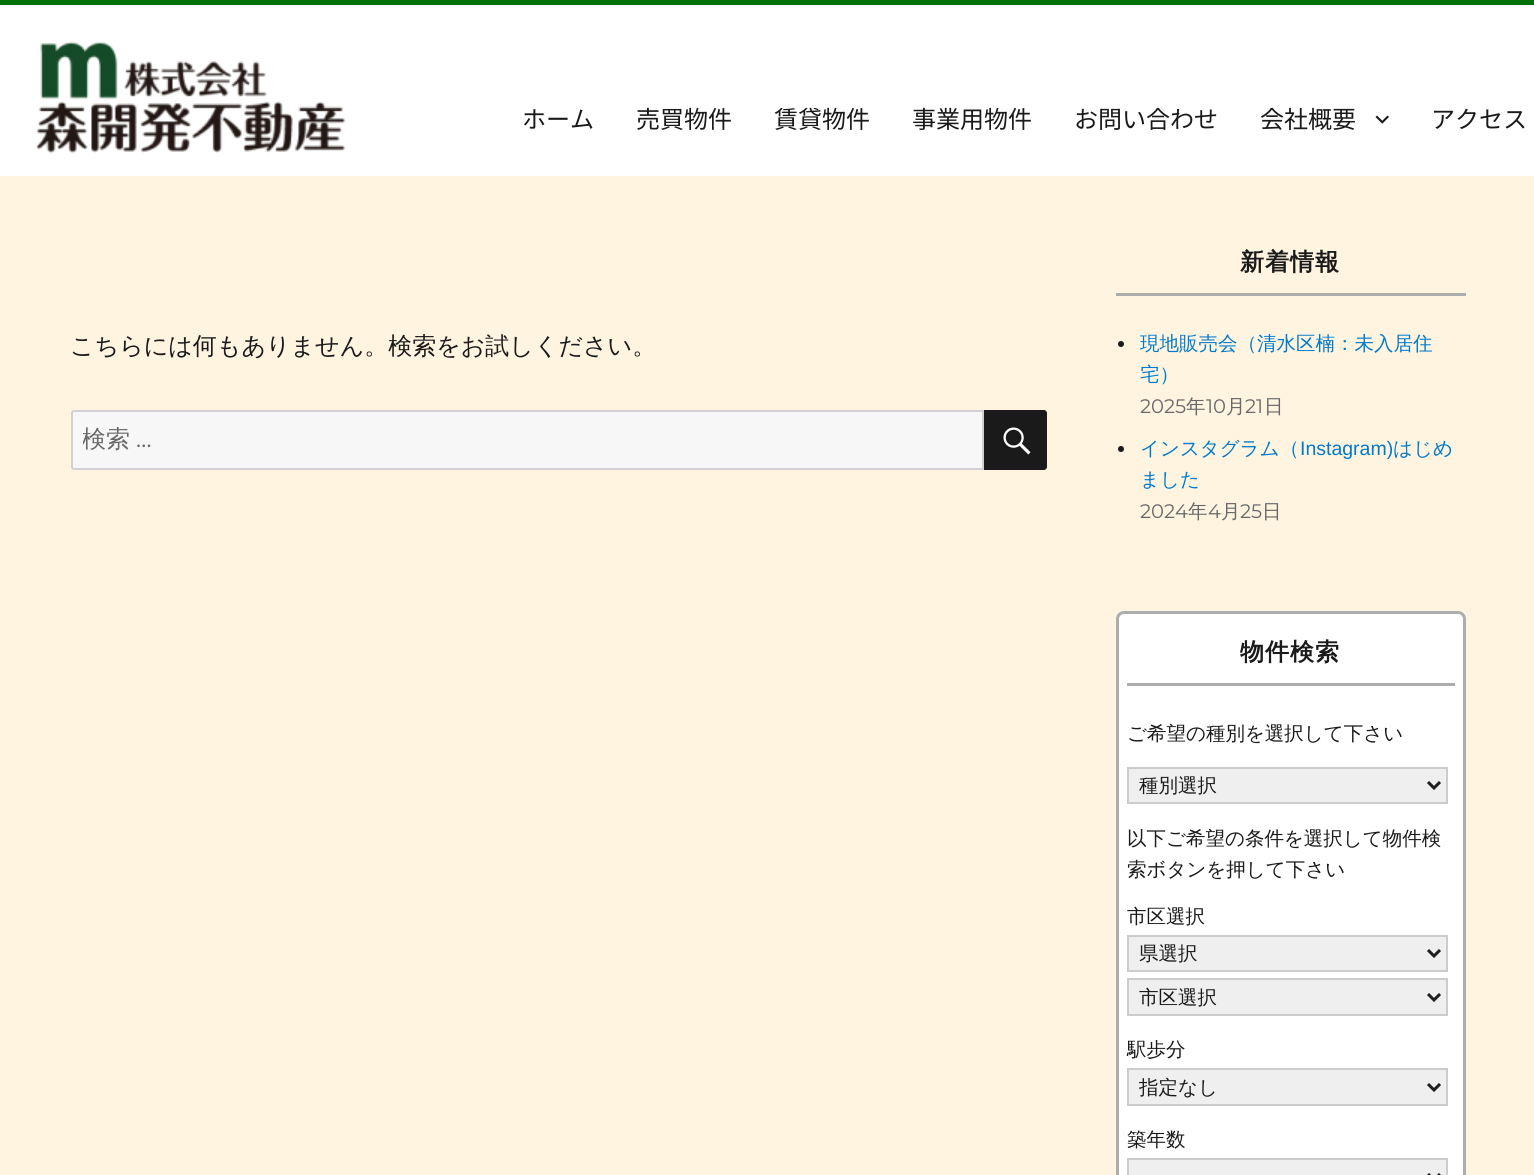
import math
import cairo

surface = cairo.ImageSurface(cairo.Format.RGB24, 1534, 1175)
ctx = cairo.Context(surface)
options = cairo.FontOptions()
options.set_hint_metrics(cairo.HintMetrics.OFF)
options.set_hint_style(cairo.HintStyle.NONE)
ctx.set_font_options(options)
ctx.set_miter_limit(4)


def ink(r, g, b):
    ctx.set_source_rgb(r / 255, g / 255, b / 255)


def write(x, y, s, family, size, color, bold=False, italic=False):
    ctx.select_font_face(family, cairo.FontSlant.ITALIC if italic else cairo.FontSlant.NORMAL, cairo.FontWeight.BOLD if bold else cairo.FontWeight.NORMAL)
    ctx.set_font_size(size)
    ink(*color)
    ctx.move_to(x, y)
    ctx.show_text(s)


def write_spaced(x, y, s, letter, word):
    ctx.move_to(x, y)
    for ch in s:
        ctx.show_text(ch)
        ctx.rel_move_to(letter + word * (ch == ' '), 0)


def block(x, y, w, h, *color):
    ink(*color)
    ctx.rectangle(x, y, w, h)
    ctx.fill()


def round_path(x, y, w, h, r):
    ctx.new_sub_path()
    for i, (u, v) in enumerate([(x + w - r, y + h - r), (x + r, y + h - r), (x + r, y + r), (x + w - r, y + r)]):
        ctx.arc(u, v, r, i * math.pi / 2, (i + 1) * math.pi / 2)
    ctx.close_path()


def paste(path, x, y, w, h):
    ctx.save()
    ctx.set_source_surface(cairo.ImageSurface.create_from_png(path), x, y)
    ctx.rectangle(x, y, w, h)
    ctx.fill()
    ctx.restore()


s1 = dict(family="Noto Sans JP", size=24, color=(26, 26, 26))
s2 = dict(family="WenQuanYi Zen Hei Medium", size=24, color=(26, 26, 26))
s3 = dict(family="WenQuanYi Zen Hei Medium", size=24, color=(104, 104, 104))
s4 = dict(family="Montserrat", size=24, color=(104, 104, 104))
s5 = dict(family="WenQuanYi Zen Hei Medium", size=19.5, color=(0, 122, 204))
s6 = dict(family="Montserrat", size=19.5, color=(104, 104, 104))
s7 = dict(family="WenQuanYi Zen Hei Medium", size=19.5, color=(104, 104, 104))
s8 = dict(family="Liberation Sans", size=19.5, color=(0, 122, 204))
s9 = dict(family="WenQuanYi Zen Hei Medium", size=19.5, color=(26, 26, 26))

ink(255, 244, 224)
ctx.paint()
block(0, 5, 1534, 171, 255, 255, 255)
block(0, 0, 1534, 5, 0, 113, 9)
paste("pic1.png", 36, 41, 310, 113)
write(522, 128, "ホーム", **s1)
write(636, 128, "売買物件", **s1)
write(774, 128, "賃貸物件", **s1)
write(912, 128, "事業用物件", **s1)
write(1074, 128, "お問い合わせ", **s1)
write(1260, 128, "会社概要", **s1)
paste("pic2.png", 1375, 115, 14, 9)
write(1431, 128, "アクセス", **s1)
write(70, 354, "こちらには何もありません。検索をお試しください。", **s2)
ink(247, 247, 247)
ctx.new_path()
ctx.move_to(74, 411)
ctx.line_to(983, 411)
ctx.line_to(983, 469)
ctx.line_to(74, 469)
ctx.curve_to(73, 469, 72, 468, 72, 467)
ctx.line_to(72, 413)
ctx.curve_to(72, 412, 73, 411, 74, 411)
ctx.close_path()
ctx.fill_preserve()
ink(209, 209, 209)
ctx.stroke()
ctx.save()
ctx.rectangle(83, 425, 883, 31)
ctx.clip()
write(82, 447, "検索", **s3)
ctx.restore()
write(136, 447, "…", **s4)
ink(26, 26, 26)
ctx.new_path()
ctx.move_to(984, 410)
ctx.line_to(1044, 410)
ctx.curve_to(1045.5, 410, 1047, 411.5, 1047, 413)
ctx.line_to(1047, 467)
ctx.curve_to(1047, 468.5, 1045.5, 470, 1044, 470)
ctx.line_to(984, 470)
ctx.close_path()
ctx.fill()
paste("pic3.png", 1003, 427, 28, 28)
block(1116, 293, 350, 3, 173, 173, 173)
ctx.select_font_face("WenQuanYi Zen Hei", cairo.FontSlant.NORMAL, cairo.FontWeight.BOLD)
ink(26, 26, 26)
write_spaced(1240, 270, "新着情報", 1, 0)
ctx.new_path()
ctx.arc(1121, 344, 3, 0, 2 * math.pi)
ctx.fill()
write(1140, 350, "現地販売会（清水区楠：未入居住", **s5)
write(1140, 381, "宅）", **s5)
write(1140, 413, "2025", **s6)
write(1186, 413, "年", **s7)
write(1206, 413, "10", **s6)
write(1226, 413, "月", **s7)
write(1245, 413, "21", **s6)
write(1264, 413, "日", **s7)
ink(26, 26, 26)
ctx.new_path()
ctx.arc(1121, 449, 3, 0, 2 * math.pi)
ctx.fill()
write(1140, 455, "インスタグラム（", **s5)
write(1300, 455, "Instagram)", **s8)
write(1393, 455, "はじめ", **s5)
write(1140, 486, "ました", **s5)
write(1140, 518, "2024", **s6)
write(1188, 518, "年", **s7)
write(1208, 518, "4", **s6)
write(1221, 518, "月", **s7)
write(1240, 518, "25", **s6)
write(1262, 518, "日", **s7)
ink(255, 255, 255)
round_path(1117.5, 612.5, 347, 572, 6.5)
ctx.fill_preserve()
ink(173, 173, 173)
ctx.set_line_width(3)
ctx.stroke()
block(1127, 683, 328, 3, 173, 173, 173)
ctx.select_font_face("WenQuanYi Zen Hei", cairo.FontSlant.NORMAL, cairo.FontWeight.BOLD)
ctx.set_font_size(24)
ink(26, 26, 26)
write_spaced(1240, 660, "物件検索", 1, 0)
write(1127, 740, "ご希望の種別を選択して下さい", **s9)
ink(239, 239, 239)
ctx.rectangle(1128, 768, 319, 35)
ctx.fill_preserve()
ink(204, 204, 204)
ctx.set_line_width(2)
ctx.stroke()
ctx.new_path()
ctx.move_to(1428, 782)
ctx.line_to(1434, 788)
ctx.line_to(1440, 782)
ink(31, 31, 31)
ctx.set_line_width(3)
ctx.stroke()
write(1139, 792, "種別選択", **s9)
write(1127, 845, "以下ご希望の条件を選択して物件検", **s9)
write(1127, 876, "索ボタンを押して下さい", **s9)
write(1127, 923, "市区選択", **s9)
ink(239, 239, 239)
ctx.rectangle(1128, 936, 319, 35)
ctx.fill_preserve()
ink(204, 204, 204)
ctx.set_line_width(2)
ctx.stroke()
ctx.new_path()
ctx.move_to(1428, 950)
ctx.line_to(1434, 956)
ctx.line_to(1440, 950)
ink(31, 31, 31)
ctx.set_line_width(3)
ctx.stroke()
write(1139, 960, "県選択", **s9)
ink(239, 239, 239)
ctx.rectangle(1128, 979, 319, 36)
ctx.fill_preserve()
ink(204, 204, 204)
ctx.set_line_width(2)
ctx.stroke()
ctx.new_path()
ctx.move_to(1428, 994)
ctx.line_to(1434, 1000)
ctx.line_to(1440, 994)
ink(31, 31, 31)
ctx.set_line_width(3)
ctx.stroke()
write(1139, 1004, "市区選択", **s9)
write(1127, 1056, "駅歩分", **s9)
ink(239, 239, 239)
ctx.rectangle(1128, 1069, 319, 36)
ctx.fill_preserve()
ink(204, 204, 204)
ctx.set_line_width(2)
ctx.stroke()
ctx.new_path()
ctx.move_to(1428, 1084)
ctx.line_to(1434, 1090)
ctx.line_to(1440, 1084)
ink(31, 31, 31)
ctx.set_line_width(3)
ctx.stroke()
ctx.save()
ctx.rectangle(1139, 1074, 279, 26)
ctx.clip()
write(1139, 1094, "指定なし", **s9)
ctx.restore()
write(1127, 1146, "築年数", **s9)
ink(239, 239, 239)
ctx.rectangle(1128, 1159, 319, 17)
ctx.fill_preserve()
ink(204, 204, 204)
ctx.set_line_width(2)
ctx.stroke()
ctx.new_path()
ctx.move_to(1428, 1174)
ctx.line_to(1434, 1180)
ctx.line_to(1440, 1174)
ink(31, 31, 31)
ctx.set_line_width(3)
ctx.stroke()
surface.write_to_png("screenshot.png")
